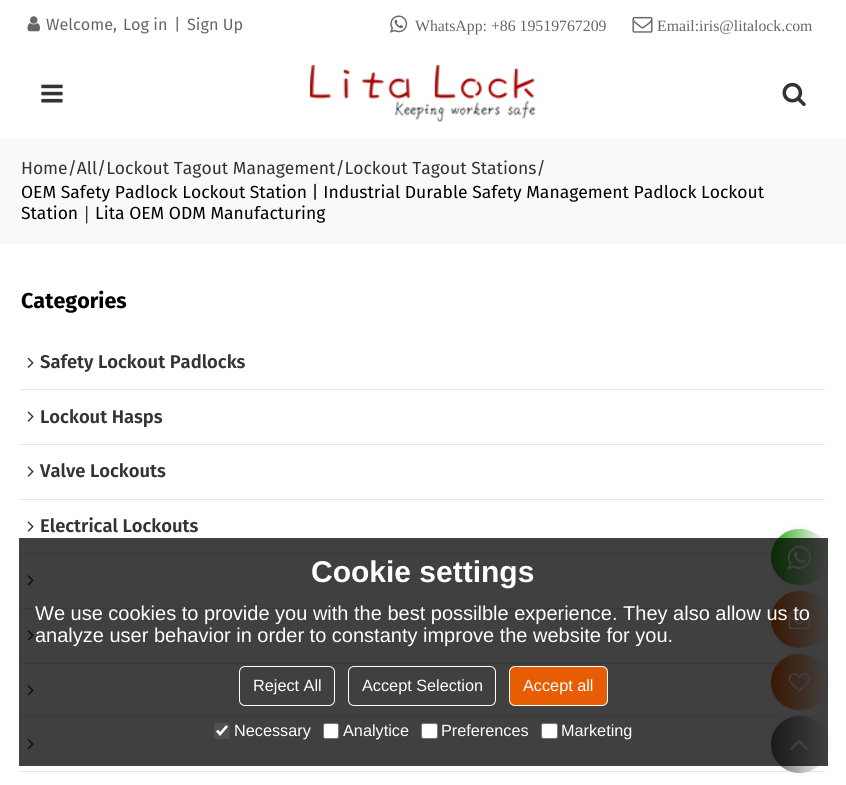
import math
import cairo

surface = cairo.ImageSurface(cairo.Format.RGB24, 846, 785)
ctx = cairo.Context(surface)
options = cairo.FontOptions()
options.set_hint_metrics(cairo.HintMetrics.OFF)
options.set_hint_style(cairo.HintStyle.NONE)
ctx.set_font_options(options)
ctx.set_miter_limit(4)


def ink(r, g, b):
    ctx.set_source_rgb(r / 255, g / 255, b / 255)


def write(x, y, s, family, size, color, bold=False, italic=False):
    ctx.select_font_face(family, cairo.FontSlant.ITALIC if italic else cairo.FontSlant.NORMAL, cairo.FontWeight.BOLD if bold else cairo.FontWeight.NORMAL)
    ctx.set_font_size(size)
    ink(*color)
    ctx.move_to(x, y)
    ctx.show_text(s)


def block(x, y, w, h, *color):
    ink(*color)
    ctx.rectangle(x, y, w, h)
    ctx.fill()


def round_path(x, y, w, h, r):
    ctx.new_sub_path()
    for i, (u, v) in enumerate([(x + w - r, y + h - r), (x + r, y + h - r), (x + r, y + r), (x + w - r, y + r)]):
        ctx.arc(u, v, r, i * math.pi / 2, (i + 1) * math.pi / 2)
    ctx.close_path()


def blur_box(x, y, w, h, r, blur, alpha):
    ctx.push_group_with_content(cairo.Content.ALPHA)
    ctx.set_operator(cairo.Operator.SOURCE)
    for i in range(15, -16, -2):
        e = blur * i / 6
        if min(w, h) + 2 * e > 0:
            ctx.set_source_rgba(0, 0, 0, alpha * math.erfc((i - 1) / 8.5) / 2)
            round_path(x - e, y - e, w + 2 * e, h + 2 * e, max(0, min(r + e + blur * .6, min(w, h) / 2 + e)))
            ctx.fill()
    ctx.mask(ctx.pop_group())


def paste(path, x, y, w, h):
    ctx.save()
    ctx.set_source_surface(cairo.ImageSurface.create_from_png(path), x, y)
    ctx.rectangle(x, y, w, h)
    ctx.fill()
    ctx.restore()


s1 = dict(family="Fira Sans", size=16.25, color=(102, 102, 102))
s2 = dict(family="Liberation Serif", size=15.8, color=(102, 102, 102))
s3 = dict(family="Fira Sans", size=17.5, color=(51, 51, 51))
s4 = dict(family="Fira Sans", size=17.5, color=(0, 0, 0))
s5 = dict(family="WenQuanYi Zen Hei Medium", size=17.5, color=(0, 0, 0))
s6 = dict(family="Fira Sans", size=21.5, color=(0, 0, 0), bold=True)
s7 = dict(family="Fira Sans SemiBold", size=18.4, color=(51, 51, 51))
s8 = dict(family="Liberation Sans", size=30, color=(255, 255, 255), bold=True)
s9 = dict(family="Liberation Sans", size=20, color=(255, 255, 255))
s10 = dict(family="Liberation Sans", size=16.25, color=(255, 255, 255))

ink(255, 255, 255)
ctx.paint()
paste("pic1.png", 27, 16, 13, 16)
write(46, 30, "Welcome,", **s1)
write(123, 30, "Log in", **s1)
write(174, 30, "|", **s1)
write(187, 30, "Sign Up", **s1)
paste("pic2.png", 390, 15, 18, 18)
write(415, 31, "WhatsApp: +86 19519767209", **s2)
paste("pic3.png", 632, 16, 21, 17)
write(657, 31, "Email:iris@litalock.com", **s2)
paste("pic4.png", 41, 84, 22, 19)
paste("pic5.png", 310, 64, 226, 58)
paste("pic6.png", 782, 82, 24, 24)
block(0, 138, 846, 106, 249, 249, 249)
write(21, 174, "Home/All/Lockout Tagout Management/Lockout Tagout Stations/", **s3)
write(21, 198, "OEM Safety Padlock Lockout Station | Industrial Durable Safety Management Padlock Lockout", **s4)
write(21, 219, "Station", **s4)
write(78, 219, "｜", **s5)
write(95, 219, "Lita OEM ODM Manufacturing", **s4)
write(21, 308, "Categories", **s6)
block(21, 389, 804, 1, 229, 229, 229)
paste("pic7.png", 27, 357, 7, 11)
write(40, 368, "Safety Lockout Padlocks", **s7)
block(21, 444, 804, 1, 229, 229, 229)
paste("pic8.png", 27, 411, 7, 11)
write(40, 423, "Lockout Hasps", **s7)
block(21, 499, 804, 1, 229, 229, 229)
paste("pic8.png", 27, 466, 7, 11)
write(40, 477, "Valve Lockouts", **s7)
block(21, 553, 751, 1, 229, 229, 229)
paste("pic8.png", 27, 521, 7, 11)
write(40, 532, "Electrical Lockouts", **s7)
block(21, 608, 753, 1, 229, 229, 229)
paste("pic9.png", 27, 575, 7, 11)
block(21, 663, 804, 1, 229, 229, 229)
paste("pic9.png", 27, 630, 7, 11)
block(21, 716, 804, 1, 229, 229, 229)
paste("pic9.png", 27, 685, 7, 11)
block(21, 771, 804, 1, 229, 229, 229)
paste("pic10.png", 27, 739, 7, 11)
ink(238, 238, 238)
blur_box(771, 529, 57, 56, 28, 3, 1)
gradient = cairo.LinearGradient(771, 557, 828, 557)
gradient.add_color_stop_rgba(0, 0.161, 0.651, 0.102, 1)
gradient.add_color_stop_rgba(1, 1, 1, 1, 1)
ctx.set_source(gradient)
round_path(771, 529, 57, 56, 28)
ctx.fill()
paste("pic11.png", 787, 545, 24, 25)
ink(238, 238, 238)
blur_box(771, 591, 57, 57, 28.5, 3, 1)
gradient = cairo.LinearGradient(771, 619, 828, 619)
gradient.add_color_stop_rgba(0, 0.91, 0.365, 0.016, 1)
gradient.add_color_stop_rgba(1, 1, 1, 1, 1)
ctx.set_source(gradient)
ctx.arc(799.5, 619.5, 28.5, 0, 2 * math.pi)
ctx.fill()
paste("pic12.png", 788, 612, 22, 17)
ink(238, 238, 238)
blur_box(771, 654, 57, 56, 28, 3, 1)
gradient = cairo.LinearGradient(771, 682, 828, 682)
gradient.add_color_stop_rgba(0, 0.91, 0.365, 0.016, 1)
gradient.add_color_stop_rgba(1, 1, 1, 1, 1)
ctx.set_source(gradient)
round_path(771, 654, 57, 56, 28)
ctx.fill()
paste("pic13.png", 788, 673, 22, 19)
ink(238, 238, 238)
blur_box(771, 716, 57, 57, 28.5, 3, 1)
gradient = cairo.LinearGradient(771, 744, 828, 744)
gradient.add_color_stop_rgba(0, 0.4, 0.4, 0.4, 1)
gradient.add_color_stop_rgba(1, 1, 1, 1, 1)
ctx.set_source(gradient)
ctx.arc(799.5, 744.5, 28.5, 0, 2 * math.pi)
ctx.fill()
paste("pic14.png", 790, 739, 19, 11)
ctx.set_source_rgba(0, 0, 0, 0.75)
ctx.rectangle(19, 538, 809, 228)
ctx.fill()
write(311, 582, "Cookie settings", **s8)
write(35, 620, "We use cookies to provide you with the best possilble experience. They also allow us to", **s9)
write(35, 642, "analyze user behavior in order to constanty improve the website for you.", **s9)
round_path(239.5, 666.5, 95, 39, 5.5)
ctx.set_line_width(1)
ctx.stroke()
write(253, 691, "Reject All", **s10)
round_path(348.5, 666.5, 147, 39, 5.5)
ctx.stroke()
write(362, 691, "Accept Selection", **s10)
ink(232, 93, 4)
round_path(509.5, 666.5, 98, 39, 5.5)
ctx.fill_preserve()
ink(255, 255, 255)
ctx.stroke()
write(523, 691, "Accept all", **s10)
ink(80, 80, 80)
round_path(214, 723, 16, 16, 2.5)
ctx.fill()
ctx.new_path()
ctx.move_to(217, 730.5)
ctx.line_to(220, 734)
ctx.line_to(227, 726)
ink(255, 255, 255)
ctx.set_line_width(2.6)
ctx.stroke()
write(234, 736, "Necessary", **s10)
round_path(323.5, 723.5, 15, 15, 2)
ctx.fill_preserve()
ink(118, 118, 118)
ctx.set_line_width(1)
ctx.stroke()
write(343, 736, "Analytice", **s10)
round_path(421.5, 723.5, 16, 15, 2)
ctx.fill_preserve()
ink(118, 118, 118)
ctx.stroke()
write(441, 736, "Preferences", **s10)
round_path(541.5, 723.5, 16, 15, 2)
ctx.fill_preserve()
ink(118, 118, 118)
ctx.stroke()
write(561, 736, "Marketing", **s10)
surface.write_to_png("screenshot.png")
